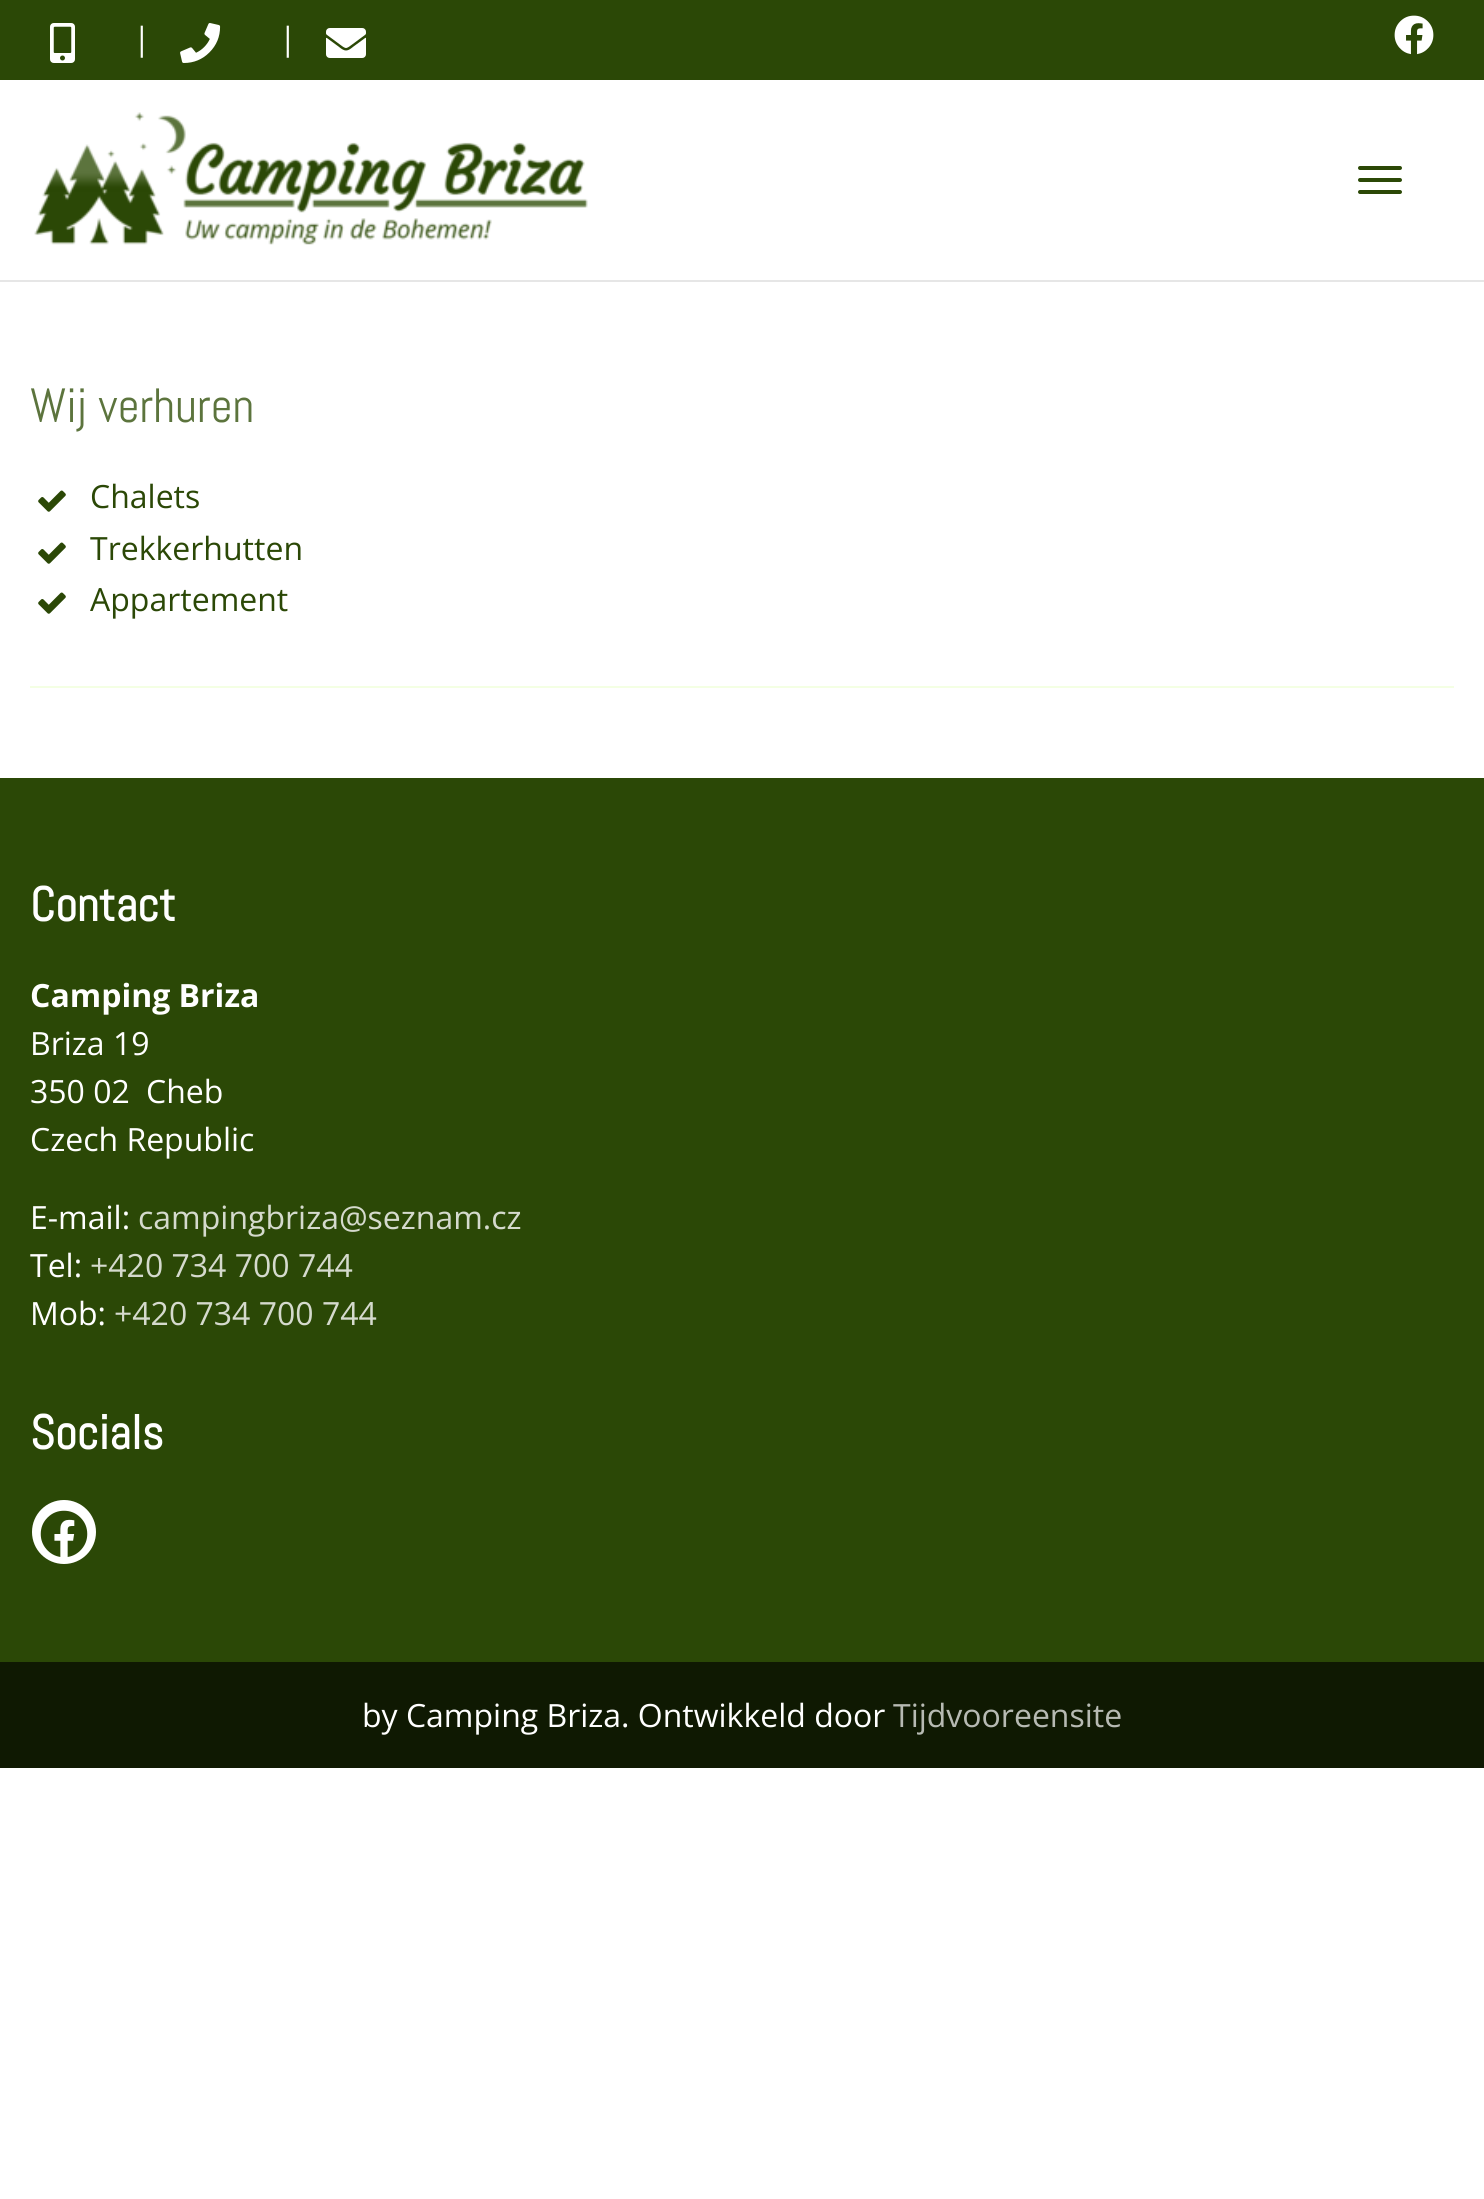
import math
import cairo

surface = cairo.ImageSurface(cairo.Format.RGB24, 1484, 2199)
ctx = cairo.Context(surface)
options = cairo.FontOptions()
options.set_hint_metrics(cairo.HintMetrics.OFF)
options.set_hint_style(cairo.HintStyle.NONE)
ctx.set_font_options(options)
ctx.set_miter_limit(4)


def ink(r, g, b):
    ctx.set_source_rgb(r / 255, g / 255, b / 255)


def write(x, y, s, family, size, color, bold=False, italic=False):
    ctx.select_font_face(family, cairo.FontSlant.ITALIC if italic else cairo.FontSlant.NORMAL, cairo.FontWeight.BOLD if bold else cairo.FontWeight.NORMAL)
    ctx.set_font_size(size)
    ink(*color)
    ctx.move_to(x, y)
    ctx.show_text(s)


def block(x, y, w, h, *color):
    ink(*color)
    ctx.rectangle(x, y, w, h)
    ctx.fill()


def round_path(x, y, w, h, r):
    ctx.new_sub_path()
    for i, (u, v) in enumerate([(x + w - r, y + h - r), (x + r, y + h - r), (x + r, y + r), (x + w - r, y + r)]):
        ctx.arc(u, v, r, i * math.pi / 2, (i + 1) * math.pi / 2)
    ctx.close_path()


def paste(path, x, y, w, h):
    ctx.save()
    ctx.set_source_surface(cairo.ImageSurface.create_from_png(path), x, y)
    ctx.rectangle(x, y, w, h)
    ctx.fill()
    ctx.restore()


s1 = dict(family="Open Sans", size=32, color=(255, 255, 255))
s2 = dict(family="Abel", size=48, color=(92, 116, 61))
s3 = dict(family="Open Sans", size=32, color=(43, 72, 6))
s4 = dict(family="Abel", size=48, color=(255, 255, 255), bold=True)
s5 = dict(family="Open Sans", size=32, color=(255, 255, 255), bold=True)
s6 = dict(family="Open Sans", size=32, color=(213, 218, 205))
s7 = dict(family="Open Sans", size=32, color=(183, 186, 179))

ink(255, 255, 255)
ctx.paint()
block(0, 0, 1484, 80, 43, 72, 6)
paste("pic1.png", 50, 23, 25, 40)
write(133, 50, "|", **s1)
paste("pic2.png", 180, 23, 41, 40)
write(279, 50, "|", **s1)
paste("pic3.png", 326, 28, 40, 30)
paste("pic4.png", 1394, 15, 40, 40)
block(0, 280, 1484, 2, 230, 230, 230)
paste("pic5.png", 34, 112, 554, 133)
ink(43, 72, 6)
round_path(1358, 166, 44, 4, 2)
ctx.fill()
round_path(1358, 178, 44, 4, 2)
ctx.fill()
round_path(1358, 190, 44, 4, 2)
ctx.fill()
block(30, 686, 1424, 2, 244, 255, 228)
write(30, 422, "Wij verhuren", **s2)
paste("pic6.png", 38, 490, 28, 22)
write(90, 508, "Chalets", **s3)
paste("pic6.png", 38, 542, 28, 22)
write(90, 560, "Trekkerhutten", **s3)
paste("pic6.png", 38, 592, 28, 22)
write(90, 611, "Appartement", **s3)
block(0, 778, 1484, 884, 43, 72, 6)
write(30, 921, "Contact", **s4)
write(30, 1007, "Camping Briza", **s5)
write(30, 1055, "Briza 19", **s1)
write(30, 1103, "350 02", **s1)
write(146, 1103, "Cheb", **s1)
write(30, 1151, "Czech Republic", **s1)
write(30, 1229, "E-mail:", **s1)
write(138, 1229, "campingbriza@seznam.cz", **s6)
write(30, 1277, "Tel:", **s1)
write(90, 1277, "+420 734 700 744", **s6)
write(30, 1325, "Mob:", **s1)
write(114, 1325, "+420 734 700 744", **s6)
write(30, 1449, "Socials", **s4)
ctx.new_path()
ctx.arc(64, 1532, 33, 0, 2 * math.pi)
ctx.fill_preserve()
ink(43, 72, 6)
ctx.stroke()
paste("pic7.png", 40, 1510, 48, 47)
block(0, 1662, 1484, 106, 15, 25, 2)
write(362, 1727, "by Camping Briza. Ontwikkeld door", **s1)
write(893, 1727, "Tijdvooreensite", **s7)
surface.write_to_png("screenshot.png")
